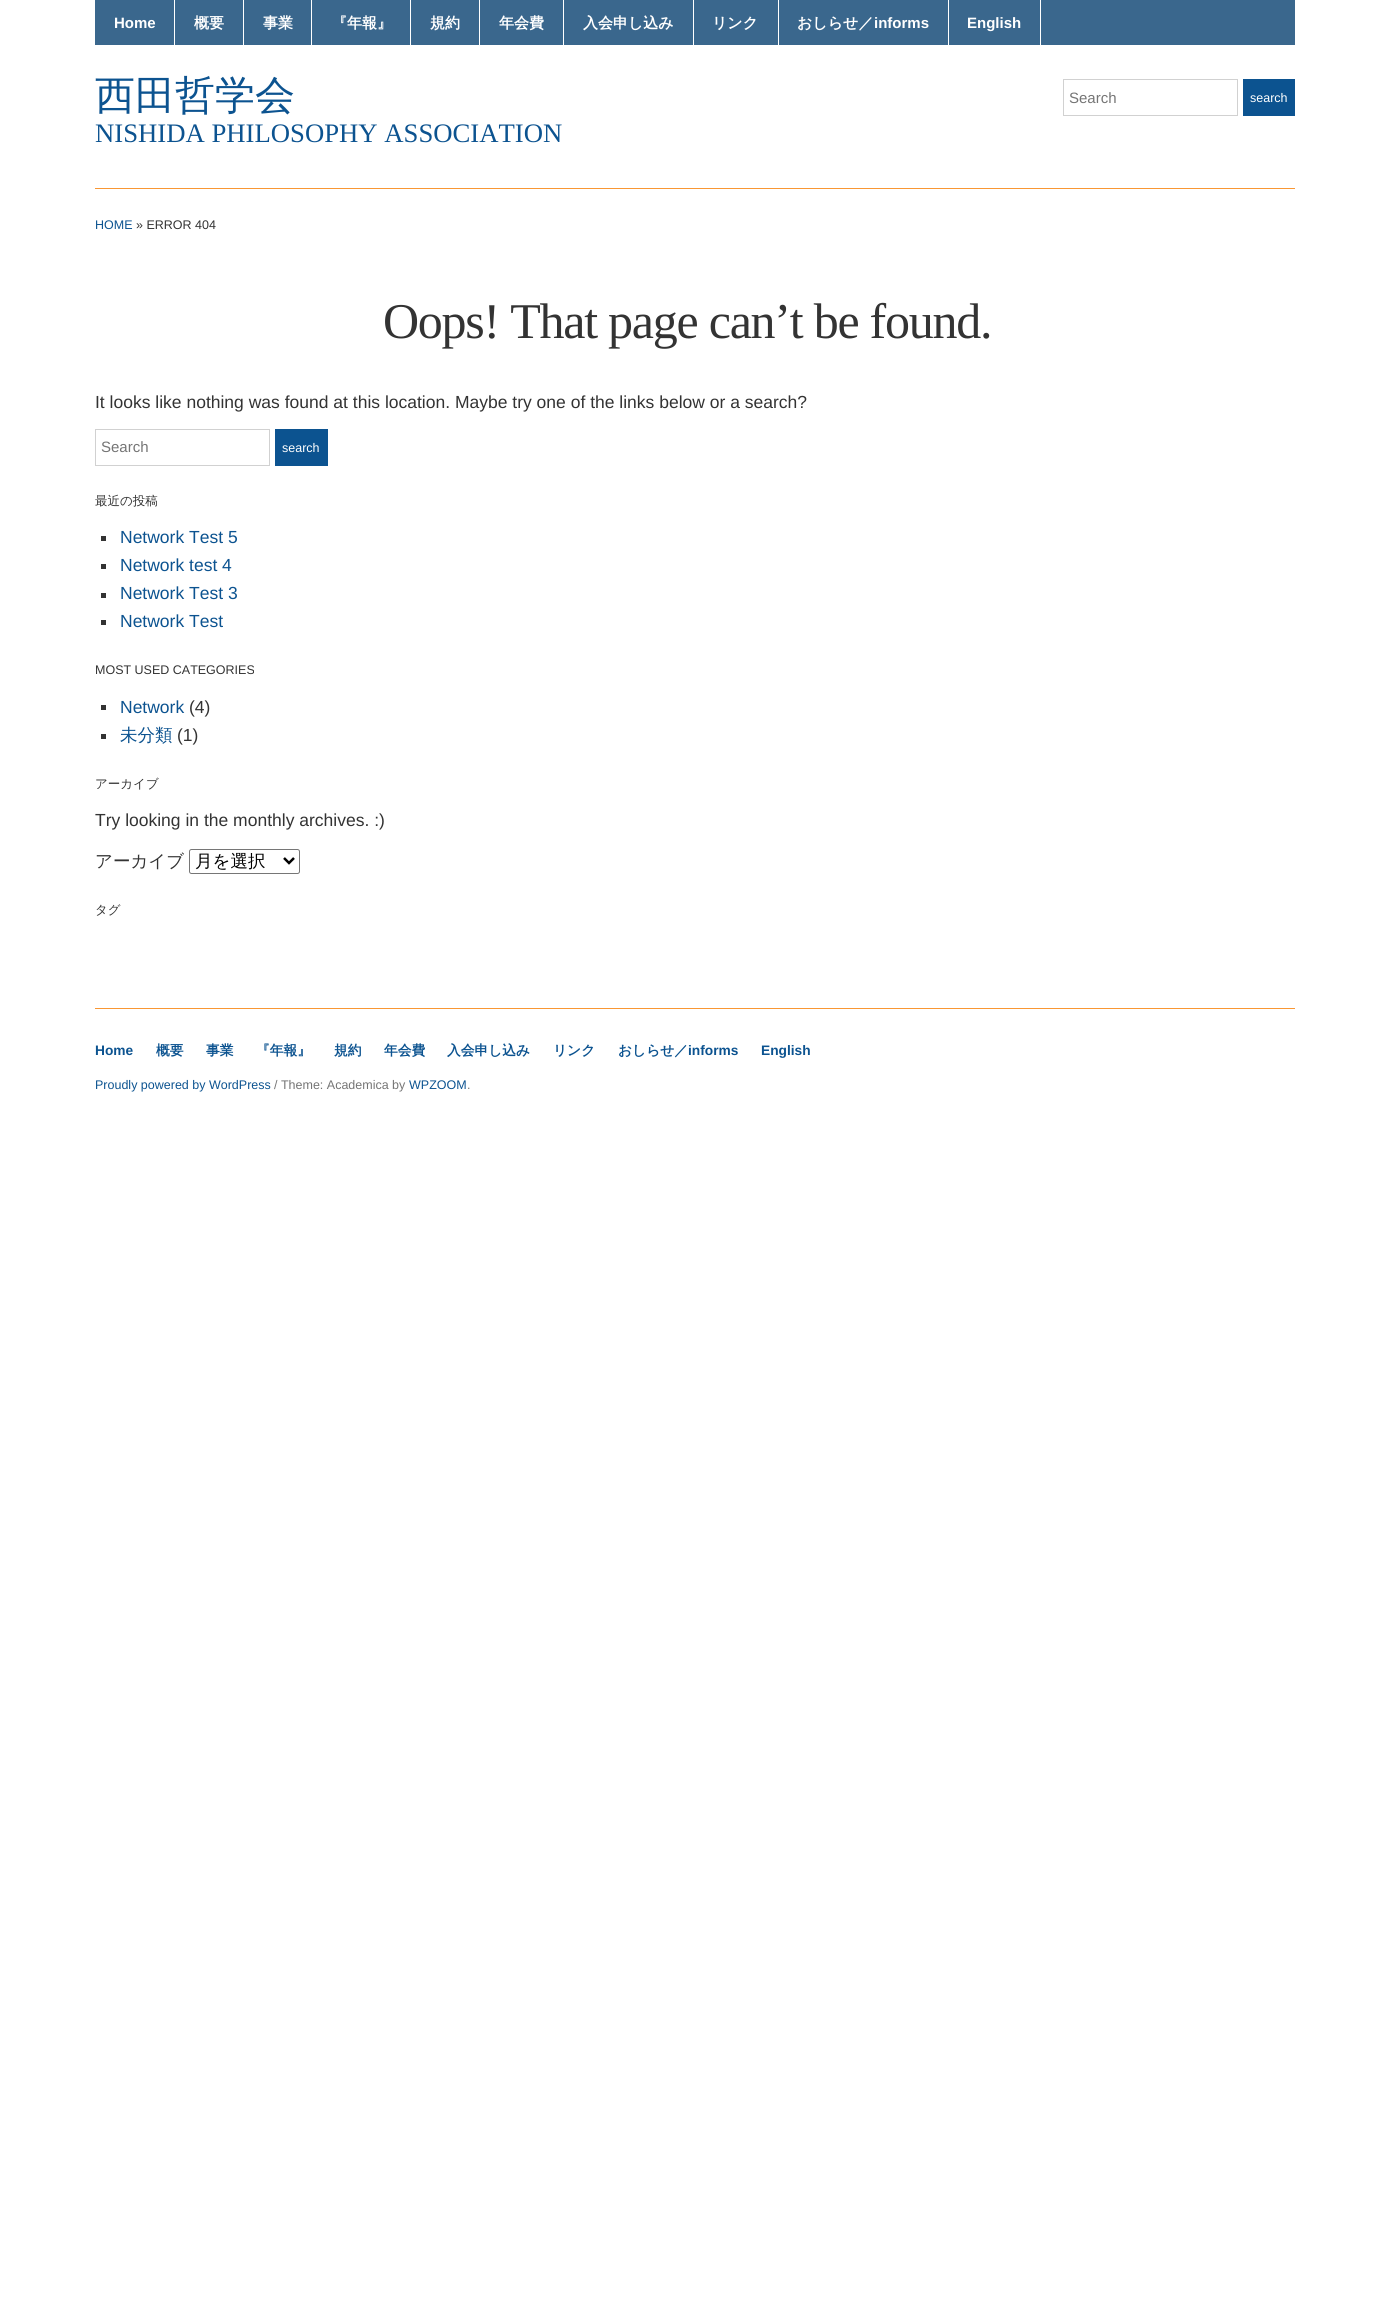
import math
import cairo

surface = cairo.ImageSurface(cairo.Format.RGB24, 1389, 2304)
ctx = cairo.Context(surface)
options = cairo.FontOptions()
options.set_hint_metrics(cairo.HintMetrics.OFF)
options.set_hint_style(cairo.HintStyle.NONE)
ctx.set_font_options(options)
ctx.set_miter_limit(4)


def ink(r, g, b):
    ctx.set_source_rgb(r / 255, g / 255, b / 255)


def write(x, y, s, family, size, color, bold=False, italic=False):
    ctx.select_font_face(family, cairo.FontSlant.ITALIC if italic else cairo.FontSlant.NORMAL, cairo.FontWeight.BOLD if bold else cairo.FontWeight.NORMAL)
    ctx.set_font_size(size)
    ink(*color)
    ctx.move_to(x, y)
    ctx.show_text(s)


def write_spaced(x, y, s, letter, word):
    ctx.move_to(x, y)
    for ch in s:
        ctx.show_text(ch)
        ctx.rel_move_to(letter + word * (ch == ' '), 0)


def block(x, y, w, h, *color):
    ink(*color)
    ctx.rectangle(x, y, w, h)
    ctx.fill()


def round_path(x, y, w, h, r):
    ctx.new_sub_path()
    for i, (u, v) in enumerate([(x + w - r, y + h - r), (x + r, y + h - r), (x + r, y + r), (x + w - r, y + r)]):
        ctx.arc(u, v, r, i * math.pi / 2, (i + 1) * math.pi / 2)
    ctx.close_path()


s1 = dict(family="Liberation Sans", size=15, color=(255, 255, 255), bold=True)
s2 = dict(family="WenQuanYi Zen Hei", size=15, color=(255, 255, 255), bold=True)
s3 = dict(family="WenQuanYi Zen Hei Medium", size=40, color=(12, 83, 144))
s4 = dict(family="Liberation Serif", size=26.7, color=(12, 83, 144))
s5 = dict(family="Liberation Sans", size=15, color=(117, 117, 117))
s6 = dict(family="Liberation Sans", size=12.5, color=(255, 255, 255))
s7 = dict(family="Liberation Sans", size=12.5, color=(12, 83, 144))
s8 = dict(family="Liberation Sans", size=12.5, color=(51, 51, 51))
s9 = dict(family="Liberation Sans", size=17.5, color=(51, 51, 51))
s10 = dict(family="WenQuanYi Zen Hei Medium", size=12.5, color=(51, 51, 51))
s11 = dict(family="Liberation Sans", size=17.5, color=(12, 83, 144))
s12 = dict(family="WenQuanYi Zen Hei Medium", size=17.5, color=(12, 83, 144))
s13 = dict(family="WenQuanYi Zen Hei Medium", size=17.5, color=(51, 51, 51))
s14 = dict(family="WenQuanYi Zen Hei Medium", size=17.5, color=(0, 0, 0))
s15 = dict(family="Liberation Sans", size=13.75, color=(12, 83, 144), bold=True)
s16 = dict(family="WenQuanYi Zen Hei", size=13.75, color=(12, 83, 144), bold=True)
s17 = dict(family="Liberation Sans", size=12.5, color=(117, 117, 117))

ink(255, 255, 255)
ctx.paint()
block(95, 0, 1200, 45, 58, 103, 141)
block(174, 0, 1, 45, 255, 255, 255)
write(114, 28, "Home", **s1)
block(243, 0, 1, 45, 255, 255, 255)
write(194, 28, "概要", **s2)
block(311, 0, 1, 45, 255, 255, 255)
write(263, 28, "事業", **s2)
block(410, 0, 1, 45, 255, 255, 255)
write(332, 28, "『年報』", **s2)
block(479, 0, 1, 45, 255, 255, 255)
write(430, 28, "規約", **s2)
block(563, 0, 1, 45, 255, 255, 255)
write(499, 28, "年会費", **s2)
block(693, 0, 1, 45, 255, 255, 255)
write(583, 28, "入会申し込み", **s2)
block(778, 0, 1, 45, 255, 255, 255)
write(712, 28, "リンク", **s2)
block(948, 0, 1, 45, 255, 255, 255)
write(797, 28, "おしらせ／", **s2)
write(874, 28, "informs", **s1)
block(1040, 0, 1, 45, 255, 255, 255)
write(967, 28, "English", **s1)
write(95, 109, "西田哲学会", **s3)
write(95, 142, "NISHIDA PHILOSOPHY ASSOCIATION", **s4)
ctx.rectangle(1063.5, 79.5, 174, 36)
ink(209, 209, 209)
ctx.set_line_width(1)
ctx.stroke()
write(1069, 103, "Search", **s5)
block(1243, 79, 52, 37, 12, 83, 144)
write(1250, 102, "search", **s6)
block(95, 188, 1200, 1, 249, 151, 52)
write(95, 229, "HOME", **s7)
write(136, 229, "» ERROR 404", **s8)
ctx.select_font_face("Liberation Serif")
ctx.set_font_size(50)
write_spaced(383, 338, "Oops! That page can’t be found.", -1.25, 0)
write(95, 408, "It looks like nothing was found at this location. Maybe try one of the links below or a search?", **s9)
ctx.rectangle(95.5, 429.5, 174, 36)
ink(209, 209, 209)
ctx.stroke()
write(101, 452, "Search", **s5)
block(275, 429, 53, 37, 12, 83, 144)
write(282, 452, "search", **s6)
write(95, 505, "最近の投稿", **s10)
block(101, 536, 5, 5, 51, 51, 51)
write(120, 543, "Network Test 5", **s11)
block(101, 564, 5, 5, 51, 51, 51)
write(120, 571, "Network test 4", **s11)
block(101, 593, 5, 5, 51, 51, 51)
write(120, 599, "Network Test 3", **s11)
block(101, 620, 5, 5, 51, 51, 51)
write(120, 627, "Network Test", **s11)
write(95, 674, "MOST USED CATEGORIES", **s8)
block(101, 705, 5, 5, 51, 51, 51)
write(120, 713, "Network", **s11)
write(189, 713, "(4)", **s9)
block(101, 734, 5, 5, 51, 51, 51)
write(120, 741, "未分類", **s12)
write(177, 741, "(1)", **s9)
write(95, 788, "アーカイブ", **s10)
write(95, 826, "Try looking in the monthly archives. :)", **s9)
write(95, 867, "アーカイブ", **s13)
round_path(189.5, 849.5, 110, 24, 2)
ink(118, 118, 118)
ctx.stroke()
ctx.new_path()
ctx.move_to(284, 858)
ctx.line_to(289, 863)
ctx.line_to(294, 858)
ink(0, 0, 0)
ctx.set_line_width(2.5)
ctx.stroke()
write(195, 867, "月を選択", **s14)
write(95, 914, "タグ", **s10)
block(95, 1008, 1200, 1, 249, 151, 52)
write(95, 1055, "Home", **s15)
write(156, 1055, "概要", **s16)
write(206, 1055, "事業", **s16)
write(256, 1055, "『年報』", **s16)
write(334, 1055, "規約", **s16)
write(384, 1055, "年会費", **s16)
write(447, 1055, "入会申し込み", **s16)
write(553, 1055, "リンク", **s16)
write(618, 1055, "おしらせ／", **s16)
write(688, 1055, "informs", **s15)
write(761, 1055, "English", **s15)
write(95, 1089, "Proudly powered by WordPress", **s7)
write(274, 1089, "/ Theme: Academica by", **s17)
write(409, 1089, "WPZOOM", **s7)
write(467, 1089, ".", **s17)
surface.write_to_png("screenshot.png")
